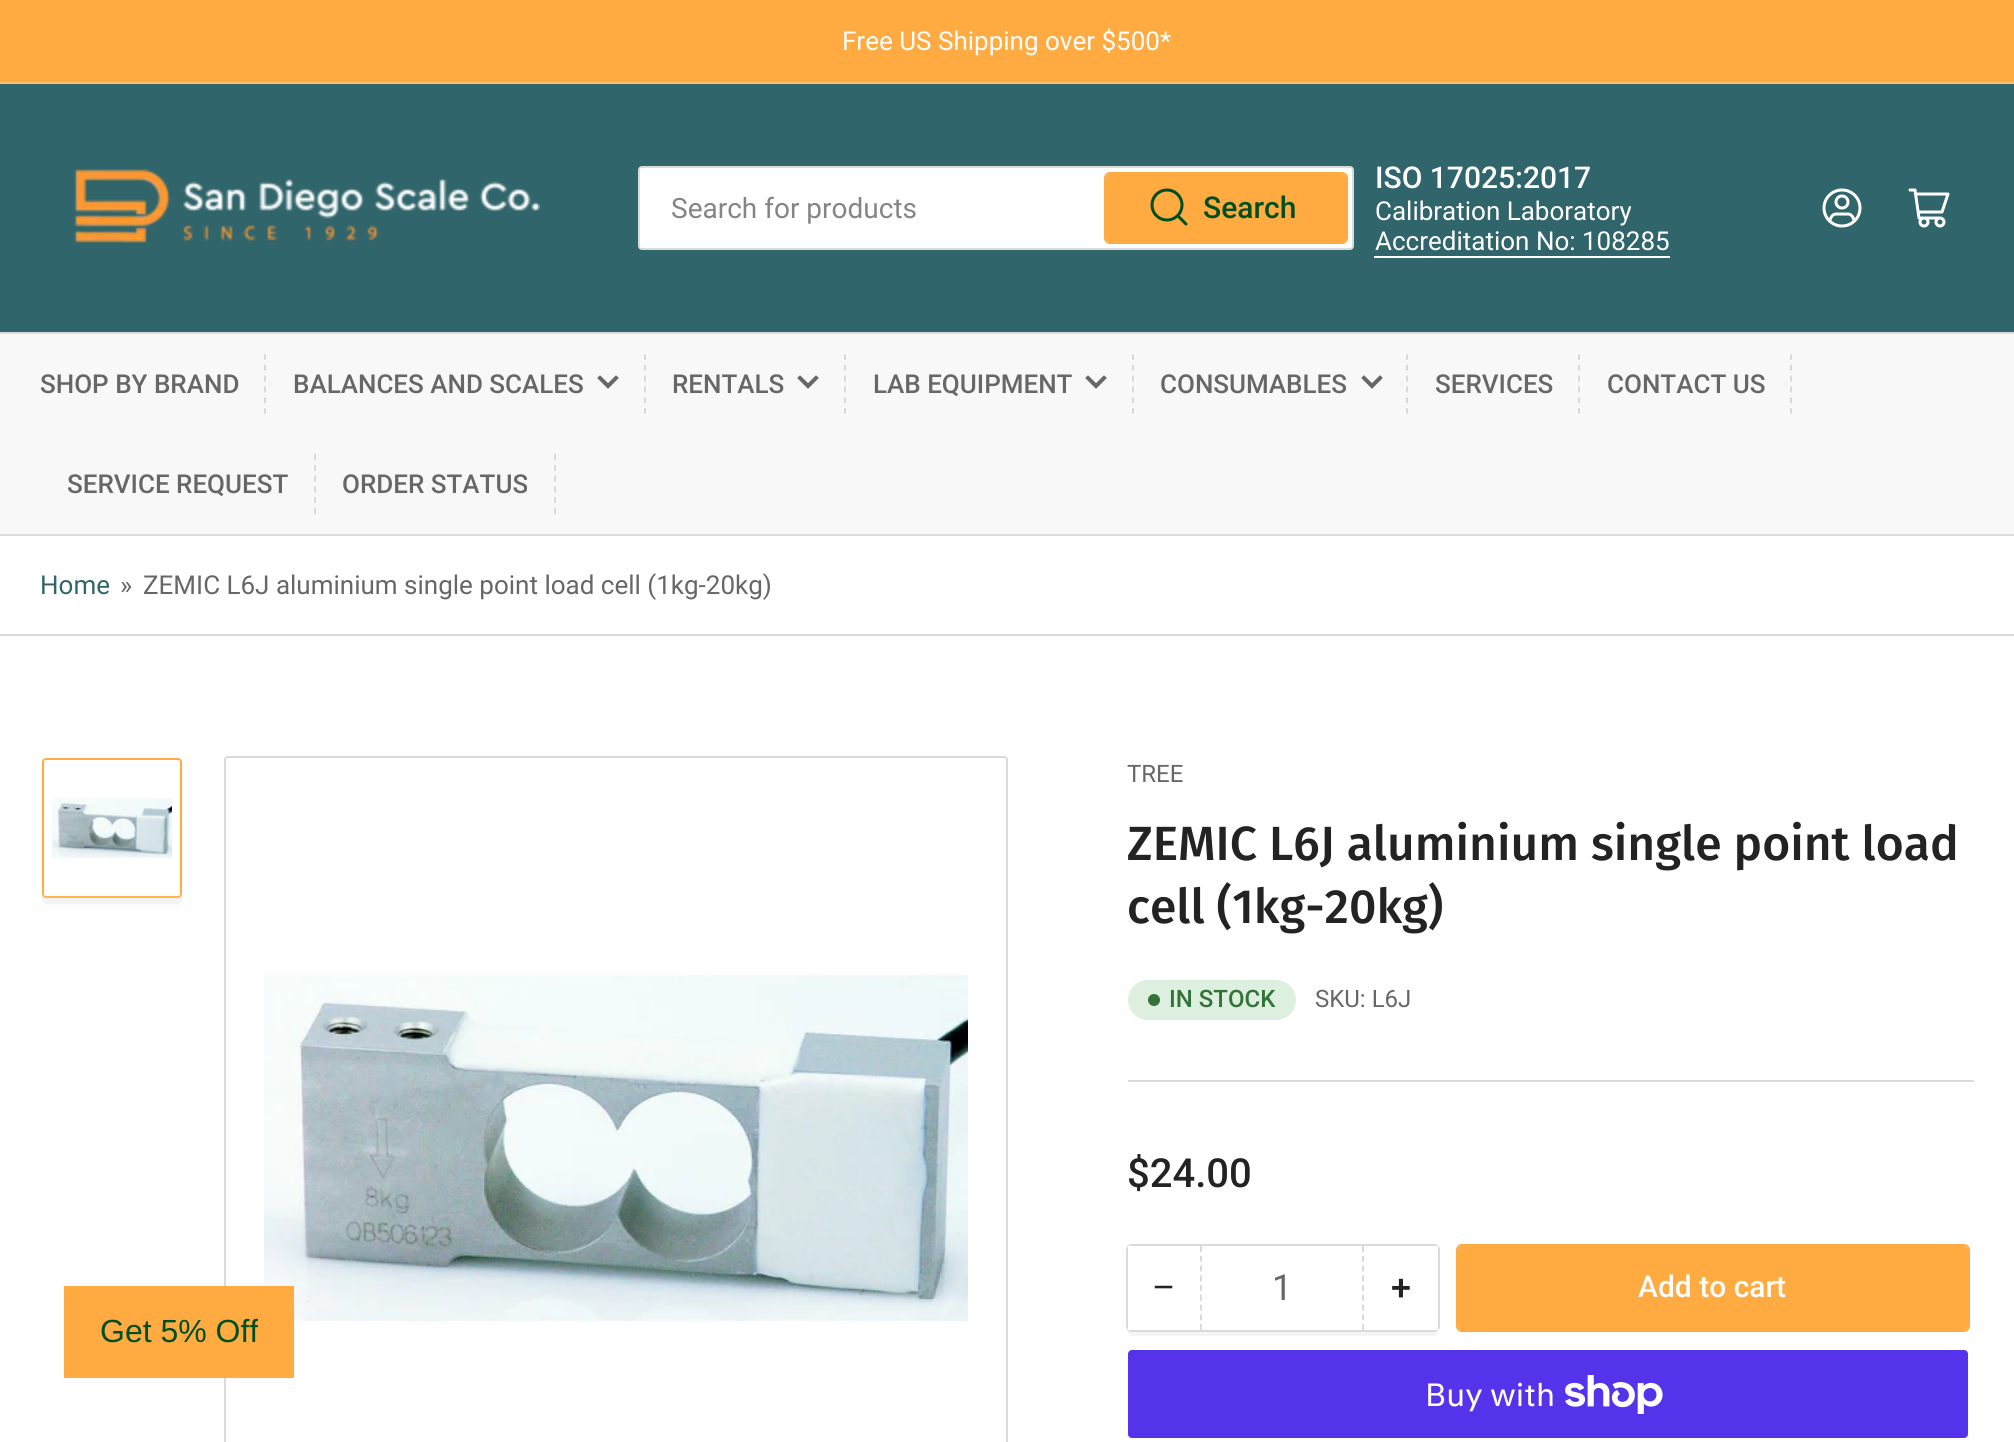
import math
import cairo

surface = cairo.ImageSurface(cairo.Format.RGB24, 2014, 1442)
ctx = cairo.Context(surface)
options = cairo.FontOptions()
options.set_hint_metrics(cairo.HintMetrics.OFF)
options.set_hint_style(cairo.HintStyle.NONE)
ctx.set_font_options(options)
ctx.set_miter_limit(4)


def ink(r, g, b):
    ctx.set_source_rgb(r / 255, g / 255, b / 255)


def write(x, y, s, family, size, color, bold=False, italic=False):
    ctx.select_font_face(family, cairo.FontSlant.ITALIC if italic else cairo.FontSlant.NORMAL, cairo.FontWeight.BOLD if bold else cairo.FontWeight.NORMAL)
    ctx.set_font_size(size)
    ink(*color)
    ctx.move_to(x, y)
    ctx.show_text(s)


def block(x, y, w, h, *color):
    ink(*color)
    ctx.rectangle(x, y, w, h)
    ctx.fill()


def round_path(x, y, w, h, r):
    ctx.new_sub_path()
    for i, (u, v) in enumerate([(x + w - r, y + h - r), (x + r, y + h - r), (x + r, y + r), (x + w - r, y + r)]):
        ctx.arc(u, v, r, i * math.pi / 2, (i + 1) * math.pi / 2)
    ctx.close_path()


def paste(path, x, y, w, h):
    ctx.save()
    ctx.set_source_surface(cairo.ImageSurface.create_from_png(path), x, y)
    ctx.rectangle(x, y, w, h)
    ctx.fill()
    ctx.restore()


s1 = dict(family="Roboto", size=26, color=(255, 255, 255))
s2 = dict(family="Roboto", size=28, color=(133, 133, 133))
s3 = dict(family="Roboto Medium", size=30, color=(0, 79, 31))
s4 = dict(family="Roboto Medium", size=30, color=(255, 255, 255))
s5 = dict(family="Roboto Medium", size=26, color=(103, 103, 103))
s6 = dict(family="Roboto", size=26, color=(48, 101, 107))
s7 = dict(family="Roboto", size=26, color=(103, 103, 103))
s8 = dict(family="Roboto", size=24, color=(103, 103, 103))
s9 = dict(family="Fira Sans Medium", size=48, color=(35, 35, 35))
s10 = dict(family="Roboto Medium", size=24, color=(51, 114, 57))
s11 = dict(family="Roboto Medium", size=40, color=(35, 35, 35))
s12 = dict(family="Liberation Sans", size=36, color=(35, 35, 35))
s13 = dict(family="Roboto", size=36, color=(103, 103, 103))
s14 = dict(family="Roboto Medium", size=36, color=(35, 35, 35))
s15 = dict(family="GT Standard", size=32, color=(255, 255, 255))
s16 = dict(family="Liberation Sans", size=32, color=(0, 79, 31))

ink(255, 255, 255)
ctx.paint()
block(0, 0, 2014, 82, 255, 171, 65)
block(0, 82, 2014, 2, 255, 192, 113)
write(842, 50, "Free US Shipping over $500*", **s1)
block(0, 84, 2014, 248, 48, 101, 107)
paste("pic1.png", 74, 169, 466, 74)
ink(255, 255, 255)
round_path(639, 167, 714, 82, 3)
ctx.fill_preserve()
ink(218, 218, 218)
ctx.stroke()
write(671, 218, "Search for products", **s2)
round_path(1105, 173, 242, 70, 5)
ink(255, 171, 65)
ctx.stroke()
round_path(1106, 174, 240, 68, 4)
ctx.fill()
paste("pic2.png", 1150, 188, 38, 38)
write(1203, 218, "Search", **s3)
write(1375, 188, "ISO 17025:2017", **s4)
write(1375, 220, "Calibration Laboratory", **s1)
write(1375, 250, "Accreditation No: 108285", **s1)
block(1374, 256, 296, 2, 255, 255, 255)
paste("pic3.png", 1822, 188, 40, 40)
paste("pic4.png", 1908, 188, 42, 40)
block(0, 334, 2014, 200, 248, 248, 248)
block(0, 332, 2014, 2, 218, 218, 218)
block(0, 534, 2014, 2, 218, 218, 218)
write(40, 393, "SHOP BY BRAND", **s5)
ctx.new_path()
ctx.move_to(265, 354)
ctx.line_to(265, 414)
ink(218, 218, 218)
ctx.set_dash([6, 4.8])
ctx.stroke()
write(293, 393, "BALANCES AND SCALES", **s5)
ctx.new_path()
ctx.move_to(616, 378)
ctx.line_to(608, 386)
ctx.line_to(600, 378)
ctx.set_line_width(4)
ctx.set_line_cap(cairo.LineCap.SQUARE)
ctx.set_dash([])
ctx.stroke()
ctx.new_path()
ctx.move_to(645, 354)
ctx.line_to(645, 414)
ink(218, 218, 218)
ctx.set_line_width(2)
ctx.set_line_cap(cairo.LineCap.BUTT)
ctx.set_dash([6, 4.8])
ctx.stroke()
write(672, 393, "RENTALS", **s5)
ctx.new_path()
ctx.move_to(816, 378)
ctx.line_to(808, 386)
ctx.line_to(800, 378)
ctx.set_line_width(4)
ctx.set_line_cap(cairo.LineCap.SQUARE)
ctx.set_dash([])
ctx.stroke()
ctx.new_path()
ctx.move_to(845, 354)
ctx.line_to(845, 414)
ink(218, 218, 218)
ctx.set_line_width(2)
ctx.set_line_cap(cairo.LineCap.BUTT)
ctx.set_dash([6, 4.8])
ctx.stroke()
write(873, 393, "LAB EQUIPMENT", **s5)
ctx.new_path()
ctx.move_to(1104, 378)
ctx.line_to(1096, 386)
ctx.line_to(1088, 378)
ctx.set_line_width(4)
ctx.set_line_cap(cairo.LineCap.SQUARE)
ctx.set_dash([])
ctx.stroke()
ctx.new_path()
ctx.move_to(1133, 354)
ctx.line_to(1133, 414)
ink(218, 218, 218)
ctx.set_line_width(2)
ctx.set_line_cap(cairo.LineCap.BUTT)
ctx.set_dash([6, 4.8])
ctx.stroke()
write(1160, 393, "CONSUMABLES", **s5)
ctx.new_path()
ctx.move_to(1380, 378)
ctx.line_to(1372, 386)
ctx.line_to(1364, 378)
ctx.set_line_width(4)
ctx.set_line_cap(cairo.LineCap.SQUARE)
ctx.set_dash([])
ctx.stroke()
ctx.new_path()
ctx.move_to(1407, 354)
ctx.line_to(1407, 414)
ink(218, 218, 218)
ctx.set_line_width(2)
ctx.set_line_cap(cairo.LineCap.BUTT)
ctx.set_dash([6, 4.8])
ctx.stroke()
write(1435, 393, "SERVICES", **s5)
ctx.new_path()
ctx.move_to(1579, 354)
ctx.line_to(1579, 414)
ink(218, 218, 218)
ctx.stroke()
write(1607, 393, "CONTACT US", **s5)
ctx.new_path()
ctx.move_to(1791, 354)
ctx.line_to(1791, 414)
ink(218, 218, 218)
ctx.stroke()
write(67, 493, "SERVICE REQUEST", **s5)
ctx.new_path()
ctx.move_to(315, 454)
ctx.line_to(315, 514)
ink(218, 218, 218)
ctx.stroke()
write(342, 493, "ORDER STATUS", **s5)
ctx.new_path()
ctx.move_to(555, 454)
ctx.line_to(555, 514)
ink(218, 218, 218)
ctx.stroke()
block(0, 634, 2014, 2, 218, 218, 218)
write(40, 594, "Home", **s6)
write(120, 594, "»", **s7)
write(143, 594, "ZEMIC L6J aluminium single point load cell (1kg-20kg)", **s7)
ink(244, 244, 244)
ctx.new_path()
ctx.move_to(42, 894)
ctx.line_to(42, 900)
ctx.curve_to(42, 902, 44, 904, 46, 904)
ctx.line_to(178, 904)
ctx.curve_to(180, 904, 182, 902, 182, 900)
ctx.line_to(182, 894)
ctx.curve_to(182, 896, 180, 898, 178, 898)
ctx.line_to(46, 898)
ctx.curve_to(44, 898, 42, 896, 42, 894)
ctx.close_path()
ctx.fill()
ink(255, 255, 255)
round_path(43, 759, 138, 138, 3)
ctx.fill_preserve()
ink(255, 171, 65)
ctx.set_dash([])
ctx.stroke()
paste("pic5.png", 52, 798, 120, 61)
gradient = cairo.LinearGradient(112, 960, 112, 890)
gradient.add_color_stop_rgba(0, 1, 1, 1, 1)
gradient.add_color_stop_rgba(1, 1, 1, 1, 0)
ctx.set_source(gradient)
ctx.rectangle(42, 892, 140, 6)
ctx.fill()
round_path(225, 757, 782, 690, 3)
ink(218, 218, 218)
ctx.stroke()
paste("pic6.png", 264, 973, 704, 351)
block(1128, 1080, 846, 2, 218, 218, 218)
write(1127, 782, "TREE", **s8)
write(1127, 860, "ZEMIC L6J aluminium single point load", **s9)
write(1127, 923, "cell (1kg-20kg)", **s9)
ink(221, 240, 223)
round_path(1128, 980, 168, 40, 20)
ctx.fill()
ink(51, 114, 57)
ctx.arc(1154, 1000, 6, 0, 2 * math.pi)
ctx.fill()
write(1169, 1007, "IN STOCK", **s10)
write(1315, 1007, "SKU: L6J", **s8)
write(1127, 1187, "$24.00", **s11)
ink(244, 244, 244)
ctx.new_path()
ctx.move_to(1128, 1326)
ctx.line_to(1128, 1332)
ctx.curve_to(1128, 1334, 1130, 1336, 1132, 1336)
ctx.line_to(1434, 1336)
ctx.curve_to(1436, 1336, 1438, 1334, 1438, 1332)
ctx.line_to(1438, 1326)
ctx.curve_to(1438, 1328, 1436, 1330, 1434, 1330)
ctx.line_to(1132, 1330)
ctx.curve_to(1130, 1330, 1128, 1328, 1128, 1326)
ctx.close_path()
ctx.fill()
round_path(1127, 1245, 312, 86, 5)
ink(218, 218, 218)
ctx.stroke()
block(1128, 1246, 4, 84, 255, 255, 255)
write(1153, 1299, "−", **s12)
ctx.new_path()
ctx.move_to(1363, 1246)
ctx.line_to(1363, 1330)
ink(218, 218, 218)
ctx.set_dash([6, 3.76])
ctx.stroke()
ctx.new_path()
ctx.move_to(1201, 1246)
ctx.line_to(1201, 1330)
ctx.stroke()
write(1272, 1300, "1", **s13)
block(1434, 1246, 4, 84, 255, 255, 255)
write(1391, 1300, "+", **s14)
round_path(1457, 1245, 512, 86, 5)
ink(255, 171, 65)
ctx.set_dash([])
ctx.stroke()
round_path(1458, 1246, 510, 84, 4)
ctx.fill()
write(1638, 1297, "Add to cart", **s4)
ink(84, 51, 235)
round_path(1128, 1350, 840, 88, 4)
ctx.fill()
write(1425, 1406, "Buy with", **s15)
paste("pic7.png", 1565, 1375, 98, 39)
block(64, 1286, 230, 92, 255, 171, 65)
ctx.save()
ctx.rectangle(100, 1314, 158, 36)
ctx.clip()
write(100, 1342, "Get 5% Off", **s16)
ctx.restore()
surface.write_to_png("screenshot.png")
